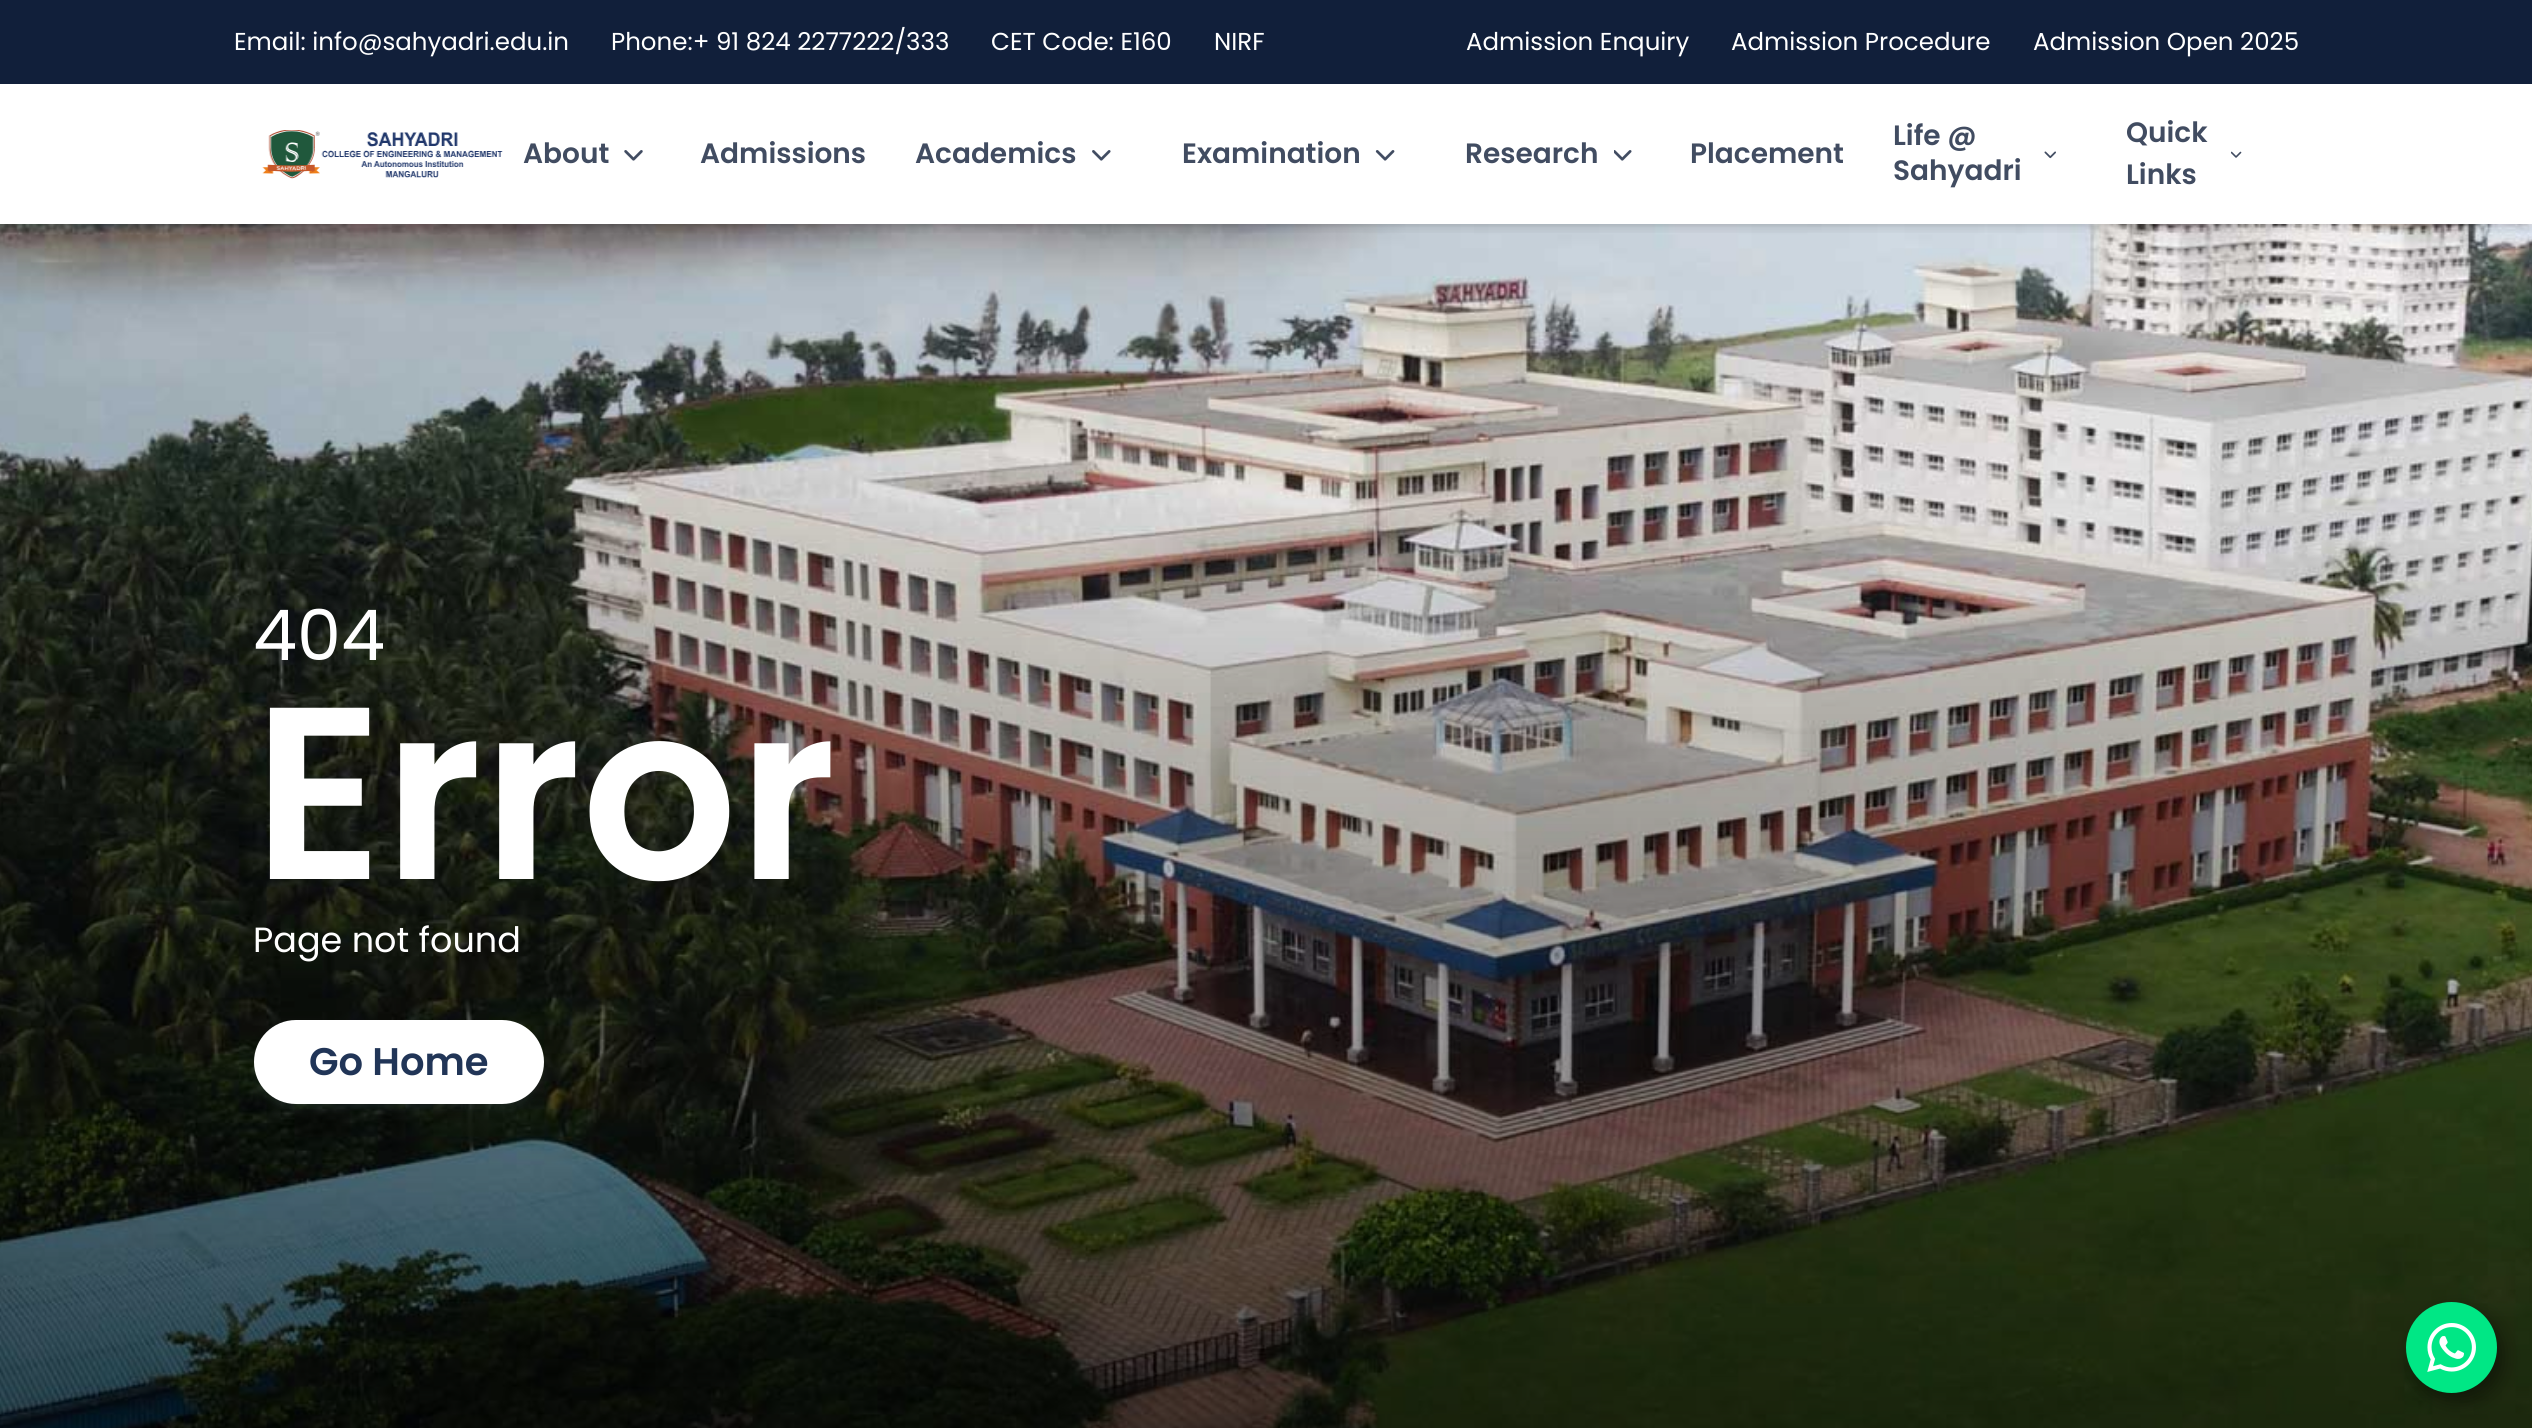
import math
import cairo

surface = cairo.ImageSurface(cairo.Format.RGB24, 2532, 1428)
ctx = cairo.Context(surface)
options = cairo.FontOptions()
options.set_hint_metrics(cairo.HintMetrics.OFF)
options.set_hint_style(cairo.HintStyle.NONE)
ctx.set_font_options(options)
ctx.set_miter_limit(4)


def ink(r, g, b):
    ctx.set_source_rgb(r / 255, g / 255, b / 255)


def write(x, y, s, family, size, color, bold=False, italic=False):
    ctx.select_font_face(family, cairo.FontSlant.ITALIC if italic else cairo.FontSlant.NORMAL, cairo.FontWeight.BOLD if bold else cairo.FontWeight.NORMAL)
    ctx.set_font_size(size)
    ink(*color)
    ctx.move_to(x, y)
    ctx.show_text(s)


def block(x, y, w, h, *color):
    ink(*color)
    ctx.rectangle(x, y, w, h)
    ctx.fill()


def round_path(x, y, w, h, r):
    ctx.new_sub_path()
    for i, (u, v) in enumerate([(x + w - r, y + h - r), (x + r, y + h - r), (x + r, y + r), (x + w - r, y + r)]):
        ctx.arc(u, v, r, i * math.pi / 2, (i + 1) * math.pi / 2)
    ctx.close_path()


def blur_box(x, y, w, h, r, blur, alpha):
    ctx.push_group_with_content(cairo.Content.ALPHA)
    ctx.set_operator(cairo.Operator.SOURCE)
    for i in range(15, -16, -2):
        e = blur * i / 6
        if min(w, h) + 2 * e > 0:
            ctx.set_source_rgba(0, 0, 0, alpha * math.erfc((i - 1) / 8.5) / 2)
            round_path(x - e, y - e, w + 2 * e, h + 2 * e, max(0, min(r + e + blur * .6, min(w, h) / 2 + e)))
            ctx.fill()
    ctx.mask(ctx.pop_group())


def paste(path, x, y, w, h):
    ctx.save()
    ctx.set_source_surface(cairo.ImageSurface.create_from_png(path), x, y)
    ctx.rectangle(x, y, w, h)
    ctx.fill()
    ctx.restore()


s1 = dict(family="Poppins", size=24.5, color=(255, 255, 255))
s2 = dict(family="Poppins SemiBold", size=28, color=(65, 76, 97))
s3 = dict(family="Poppins", size=70, color=(255, 255, 255))
s4 = dict(family="Poppins SemiBold", size=245, color=(255, 255, 255))
s5 = dict(family="Poppins", size=35, color=(255, 255, 255))
s6 = dict(family="Poppins SemiBold", size=38.5, color=(33, 53, 87))

ink(255, 255, 255)
ctx.paint()
block(0, 0, 2532, 84, 17, 31, 58)
write(234, 50, "Email: info@sahyadri.edu.in", **s1)
write(611, 50, "Phone:+ 91 824 2277222/333", **s1)
write(991, 50, "CET Code: E160", **s1)
write(1214, 50, "NIRF", **s1)
write(1466, 50, "Admission Enquiry", **s1)
write(1731, 50, "Admission Procedure", **s1)
write(2033, 50, "Admission Open 2025", **s1)
paste("pic8.png", 0, 224, 2532, 1204)
ctx.save()
ctx.rectangle(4, 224, 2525, 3)
ctx.clip()
ink(0, 0, 0)
blur_box(4, 91, 2525, 133, 0, 3.5, 0.1)
ctx.restore()
ctx.save()
ctx.rectangle(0, 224, 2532, 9)
ctx.clip()
ink(0, 0, 0)
blur_box(2, 93, 2529, 136, 0, 5, 0.1)
ctx.restore()
paste("pic1.png", 262, 130, 241, 49)
write(523, 163, "About", **s2)
paste("pic2.png", 624, 150, 19, 11)
write(700, 163, "Admissions", **s2)
write(915, 163, "Academics", **s2)
paste("pic3.png", 1092, 150, 19, 11)
write(1182, 163, "Examination", **s2)
paste("pic4.png", 1375, 150, 20, 11)
write(1465, 163, "Research", **s2)
paste("pic5.png", 1614, 150, 18, 11)
write(1690, 163, "Placement", **s2)
write(1893, 145, "Life @", **s2)
paste("pic6.png", 2044, 151, 12, 8)
write(1893, 180, "Sahyadri", **s2)
write(2126, 142, "Quick", **s2)
paste("pic7.png", 2231, 151, 11, 7)
write(2126, 184, "Links", **s2)
write(253, 660, "404", **s3)
write(253, 879, "Error", **s4)
write(253, 952, "Page not found", **s5)
ink(96, 125, 139)
blur_box(257, 1027, 284, 77, 38.5, 3.5, 0.1)
blur_box(256, 1029, 287, 81, 40.5, 5, 0.1)
ink(255, 255, 255)
round_path(254, 1020, 290, 84, 42)
ctx.fill()
write(309, 1075, "Go Home", **s6)
ink(0, 0, 0)
blur_box(2413, 1311, 91, 91, 45.5, 9, 0.4)
ink(0, 231, 133)
ctx.arc(2451.5, 1347.5, 45.5, 0, 2 * math.pi)
ctx.fill()
paste("pic9.png", 2427, 1323, 49, 49)
surface.write_to_png("screenshot.png")
